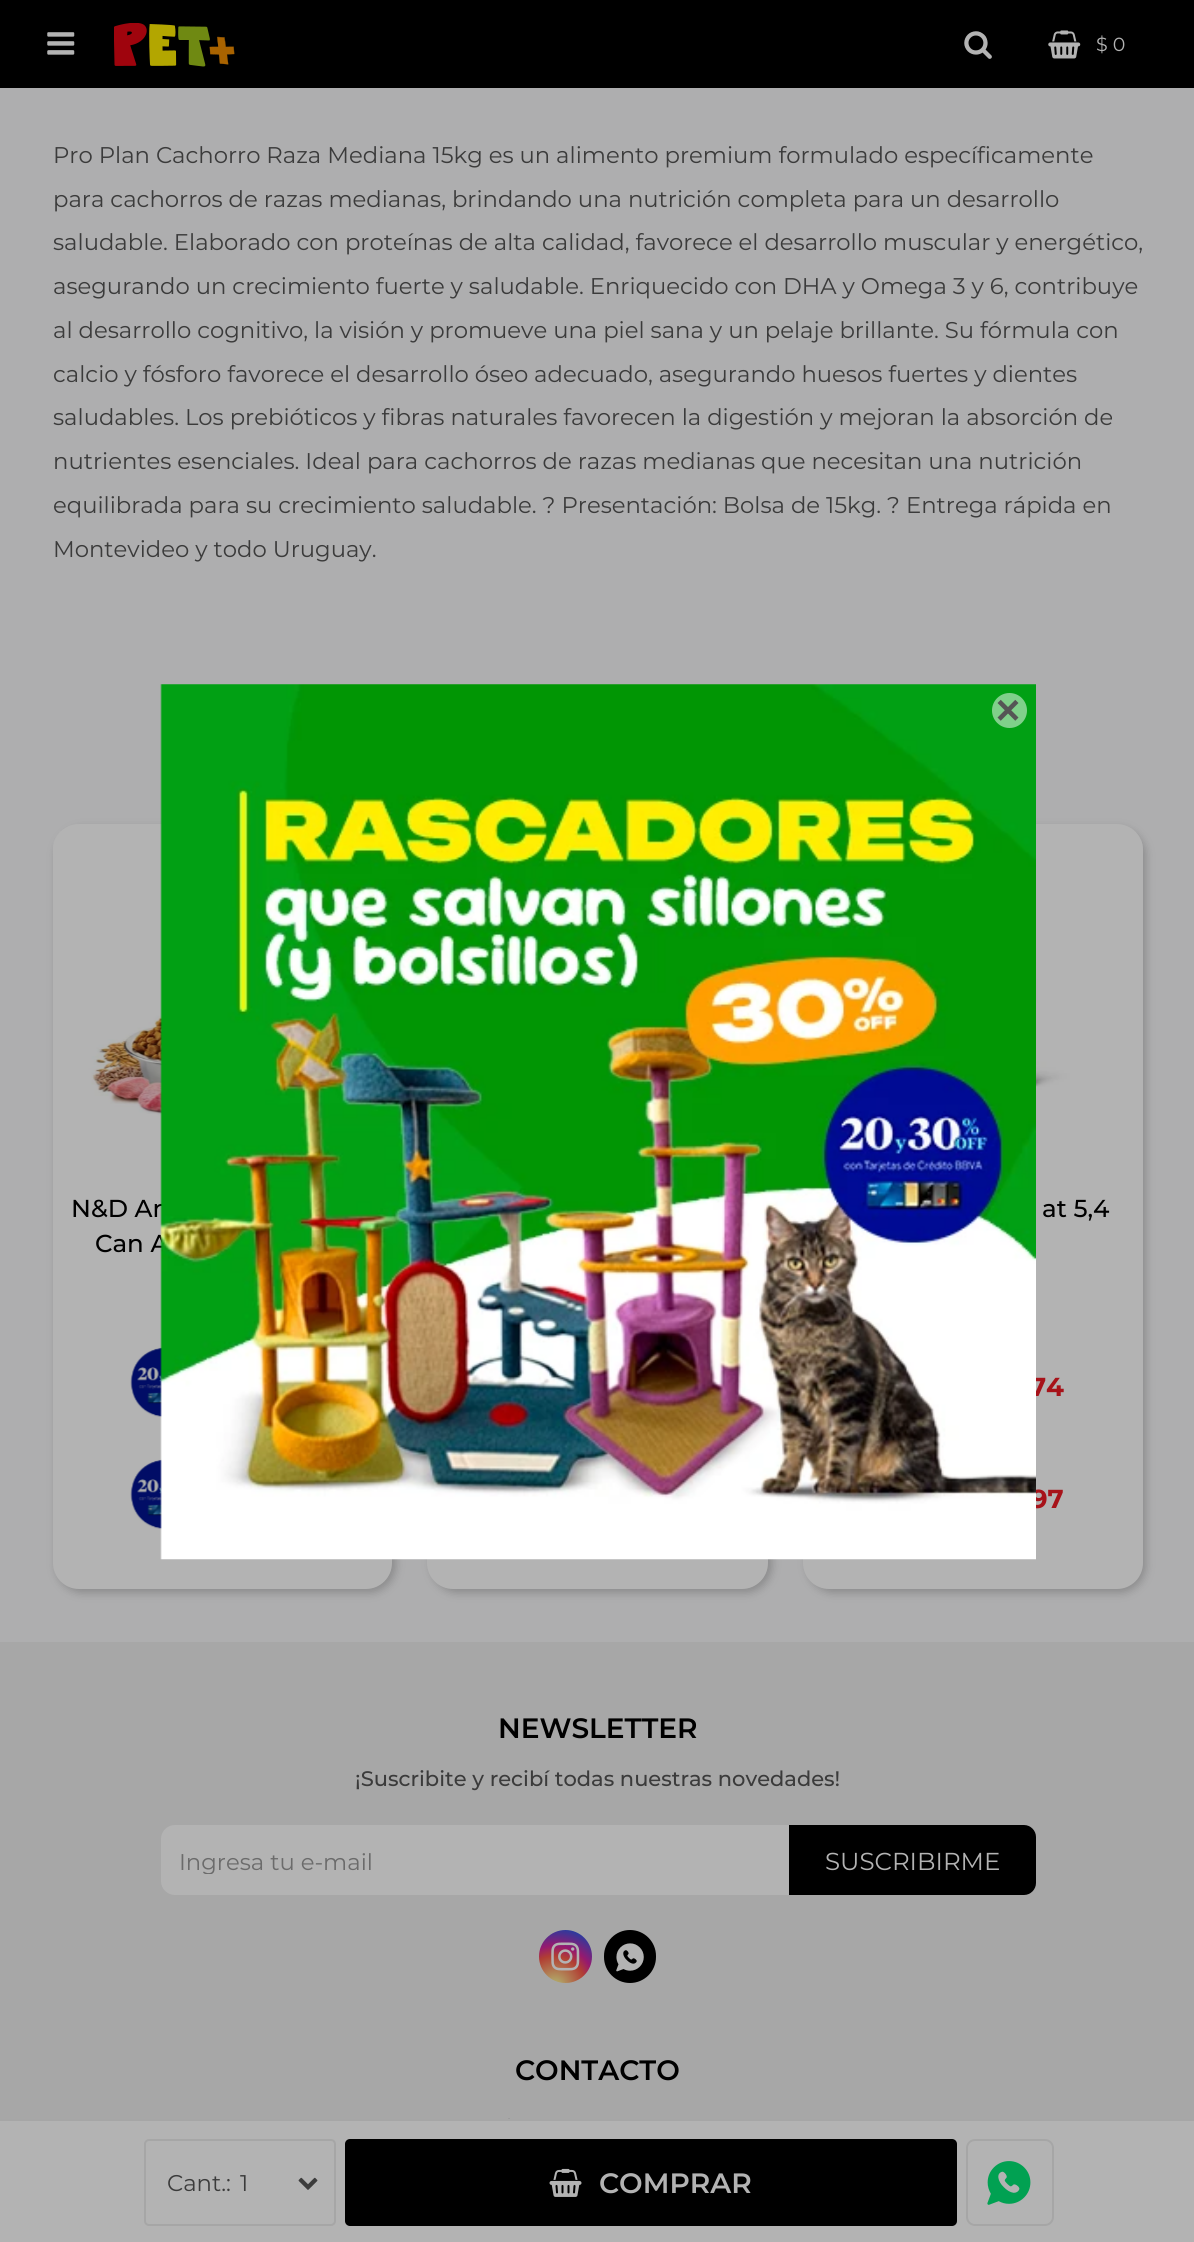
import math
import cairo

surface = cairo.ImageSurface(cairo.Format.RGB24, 1194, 2242)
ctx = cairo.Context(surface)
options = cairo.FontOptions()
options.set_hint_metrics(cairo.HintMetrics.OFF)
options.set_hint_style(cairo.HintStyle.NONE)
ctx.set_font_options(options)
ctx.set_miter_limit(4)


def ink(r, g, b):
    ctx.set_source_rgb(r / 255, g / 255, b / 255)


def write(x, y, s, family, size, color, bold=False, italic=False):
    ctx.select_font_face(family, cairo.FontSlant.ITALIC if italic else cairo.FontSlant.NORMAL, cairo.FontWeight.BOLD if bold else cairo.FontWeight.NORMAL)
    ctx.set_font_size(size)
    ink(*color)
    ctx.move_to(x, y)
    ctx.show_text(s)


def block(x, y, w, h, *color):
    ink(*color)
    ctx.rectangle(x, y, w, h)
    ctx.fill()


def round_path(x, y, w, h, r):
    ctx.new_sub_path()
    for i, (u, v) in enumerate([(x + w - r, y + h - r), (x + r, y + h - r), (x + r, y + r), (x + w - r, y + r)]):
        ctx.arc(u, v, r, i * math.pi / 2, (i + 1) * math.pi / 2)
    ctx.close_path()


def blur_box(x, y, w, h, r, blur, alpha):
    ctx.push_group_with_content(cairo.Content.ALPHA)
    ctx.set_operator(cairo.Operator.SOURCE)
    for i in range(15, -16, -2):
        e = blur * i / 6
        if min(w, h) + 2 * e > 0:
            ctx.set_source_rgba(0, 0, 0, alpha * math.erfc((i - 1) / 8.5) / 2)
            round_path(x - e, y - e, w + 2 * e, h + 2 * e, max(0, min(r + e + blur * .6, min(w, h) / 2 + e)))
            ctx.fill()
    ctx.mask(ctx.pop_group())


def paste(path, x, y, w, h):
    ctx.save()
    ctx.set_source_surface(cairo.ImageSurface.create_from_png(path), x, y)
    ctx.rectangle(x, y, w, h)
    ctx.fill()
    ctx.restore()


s1 = dict(family="Montserrat", size=19, color=(179, 179, 179))
s2 = dict(family="Montserrat", size=22.75, color=(59, 59, 59))
s3 = dict(family="Montserrat Medium", size=24.5, color=(0, 0, 0))
s4 = dict(family="Montserrat", size=26, color=(167, 18, 25), bold=True)
s5 = dict(family="Montserrat SemiBold", size=28, color=(179, 179, 179))
s6 = dict(family="Montserrat SemiBold", size=28, color=(0, 0, 0))
s7 = dict(family="Montserrat Medium", size=21, color=(59, 59, 59))
s8 = dict(family="Montserrat", size=22.75, color=(107, 107, 107))
s9 = dict(family="Montserrat", size=24.5, color=(179, 179, 179))

ink(174, 174, 175)
ctx.paint()
block(0, 0, 1194, 88, 0, 0, 0)
paste("pic1.png", 47, 32, 28, 23)
paste("pic2.png", 114, 23, 121, 44)
paste("pic3.png", 964, 31, 28, 28)
paste("pic4.png", 1048, 30, 33, 29)
write(1096, 51, "$ 0", **s1)
write(53, 163, "Pro Plan Cachorro Raza Mediana 15kg es un alimento premium formulado específicamente", **s2)
write(53, 207, "para cachorros de razas medianas, brindando una nutrición completa para un desarrollo", **s2)
write(53, 250, "saludable. Elaborado con proteínas de alta calidad, favorece el desarrollo muscular y energético,", **s2)
write(53, 294, "asegurando un crecimiento fuerte y saludable. Enriquecido con DHA y Omega 3 y 6, contribuye", **s2)
write(53, 338, "al desarrollo cognitivo, la visión y promueve una piel sana y un pelaje brillante. Su fórmula con", **s2)
write(53, 382, "calcio y fósforo favorece el desarrollo óseo adecuado, asegurando huesos fuertes y dientes", **s2)
write(53, 425, "saludables. Los prebióticos y fibras naturales favorecen la digestión y mejoran la absorción de", **s2)
write(53, 469, "nutrientes esenciales. Ideal para cachorros de razas medianas que necesitan una nutrición", **s2)
write(53, 513, "equilibrada para su crecimiento saludable. ? Presentación: Bolsa de 15kg. ? Entrega rápida en", **s2)
write(53, 557, "Montevideo y todo Uruguay.", **s2)
ink(0, 0, 0)
blur_box(56, 828, 340, 765, 26, 4.5, 0.2)
ink(179, 179, 179)
round_path(53, 824, 339, 765, 26)
ctx.fill()
paste("pic5.png", 53, 831, 109, 332)
write(71, 1217, "N&D An", **s3)
write(95, 1252, "Can A", **s3)
paste("pic6.png", 130, 1347, 32, 71)
paste("pic7.png", 130, 1459, 32, 71)
ink(0, 0, 0)
blur_box(431, 828, 341, 765, 26, 4.5, 0.2)
ink(179, 179, 179)
round_path(427, 824, 341, 765, 26)
ctx.fill()
ink(0, 0, 0)
blur_box(807, 828, 339, 765, 26, 4.5, 0.2)
ink(179, 179, 179)
round_path(803, 824, 340, 765, 26)
ctx.fill()
paste("pic8.png", 1036, 840, 107, 267)
write(1042, 1217, "at 5,4", **s3)
write(1030, 1396, "74", **s4)
write(1031, 1508, "97", **s4)
block(0, 2121, 1194, 121, 179, 179, 179)
block(0, 2119, 1194, 2, 166, 166, 166)
paste("pic9.png", 298, 2177, 20, 13)
round_path(145, 2140, 190, 85, 4)
ctx.stroke()
write(167, 2191, "Cant.:", **s2)
write(240, 2191, "1", **s2)
ink(0, 0, 0)
round_path(345, 2139, 612, 87, 5)
ctx.fill()
paste("pic10.png", 549, 2168, 33, 29)
write(599, 2193, "COMPRAR", **s5)
round_path(967, 2140, 86, 85, 8)
ink(166, 166, 166)
ctx.stroke()
paste("pic11.png", 987, 2161, 44, 44)
block(0, 1642, 1194, 477, 167, 167, 167)
write(498, 1738, "NEWSLETTER", **s6)
write(355, 1786, "¡Suscribite y recibí todas nuestras novedades!", **s7)
ink(179, 179, 179)
round_path(162, 1826, 873, 68, 13)
ctx.fill_preserve()
ctx.stroke()
ctx.save()
ctx.rectangle(180, 1846, 749, 28)
ctx.clip()
write(179, 1870, "Ingresa tu e-mail", **s8)
ctx.restore()
ink(0, 0, 0)
ctx.new_path()
ctx.move_to(789, 1825)
ctx.line_to(1024, 1825)
ctx.curve_to(1030.5, 1825, 1036, 1830.5, 1036, 1837)
ctx.line_to(1036, 1883)
ctx.curve_to(1036, 1889.5, 1030.5, 1895, 1024, 1895)
ctx.line_to(789, 1895)
ctx.close_path()
ctx.fill()
write(825, 1870, "SUSCRIBIRME", **s9)
gradient = cairo.RadialGradient(555, 1986, 0, 555, 1986, 67)
gradient.add_color_stop_rgba(0, 0.694, 0.671, 0.416, 1)
gradient.add_color_stop_rgba(0.05, 0.694, 0.671, 0.416, 1)
gradient.add_color_stop_rgba(0.45, 0.694, 0.243, 0.2, 1)
gradient.add_color_stop_rgba(0.6, 0.588, 0.098, 0.435, 1)
gradient.add_color_stop_rgba(0.9, 0.11, 0.247, 0.647, 1)
ctx.set_source(gradient)
ctx.new_path()
ctx.arc(565.5, 1956.5, 26.5, 0, 2 * math.pi)
ctx.fill()
paste("pic12.png", 551, 1942, 29, 29)
ink(0, 0, 0)
round_path(604, 1930, 52, 53, 26)
ctx.fill()
paste("pic13.png", 616, 1943, 28, 29)
write(515, 2080, "CONTACTO", **s6)
paste("pic14.png", 508, 2118, 2, 1)
paste("pic15.png", 160, 684, 876, 876)
ink(128, 208, 138)
ctx.arc(1009.5, 710.5, 17.5, 0, 2 * math.pi)
ctx.fill()
paste("pic16.png", 997, 699, 22, 22)
surface.write_to_png("screenshot.png")
